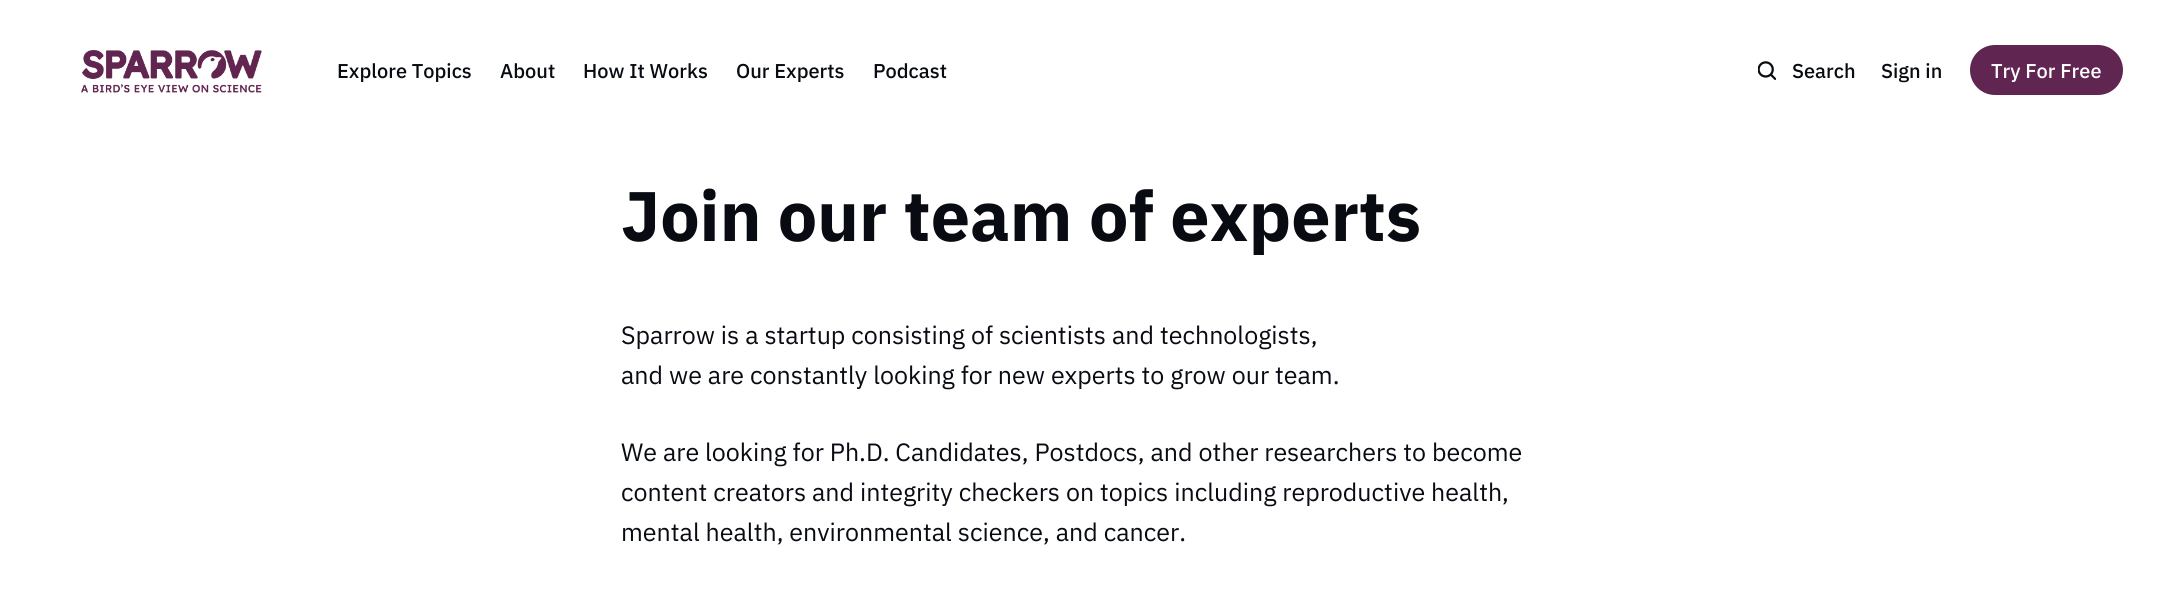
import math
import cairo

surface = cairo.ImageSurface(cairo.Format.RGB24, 2166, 597)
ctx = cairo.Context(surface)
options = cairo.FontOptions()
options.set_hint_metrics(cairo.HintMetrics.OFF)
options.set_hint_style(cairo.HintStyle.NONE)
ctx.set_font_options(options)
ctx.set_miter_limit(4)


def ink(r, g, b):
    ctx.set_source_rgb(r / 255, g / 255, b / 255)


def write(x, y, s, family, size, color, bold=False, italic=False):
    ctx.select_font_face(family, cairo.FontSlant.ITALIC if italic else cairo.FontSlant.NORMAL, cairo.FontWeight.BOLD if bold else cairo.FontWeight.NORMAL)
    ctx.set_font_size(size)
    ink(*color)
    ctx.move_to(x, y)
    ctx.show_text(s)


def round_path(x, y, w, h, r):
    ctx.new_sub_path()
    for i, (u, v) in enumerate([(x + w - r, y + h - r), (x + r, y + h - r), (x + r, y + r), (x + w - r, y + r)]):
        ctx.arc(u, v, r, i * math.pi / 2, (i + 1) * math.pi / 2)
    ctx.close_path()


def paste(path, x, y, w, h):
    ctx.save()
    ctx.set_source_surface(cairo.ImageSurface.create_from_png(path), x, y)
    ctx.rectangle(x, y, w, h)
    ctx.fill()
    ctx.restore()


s1 = dict(family="IBM Plex Sans Medium", size=20, color=(8, 11, 18))
s2 = dict(family="IBM Plex Sans Medium", size=20, color=(255, 255, 255))
s3 = dict(family="IBM Plex Sans", size=70, color=(8, 11, 18), bold=True)
s4 = dict(family="IBM Plex Sans", size=25, color=(8, 11, 18))

ink(255, 255, 255)
ctx.paint()
paste("pic1.png", 81, 50, 181, 43)
write(337, 78, "Explore Topics", **s1)
write(500, 78, "About", **s1)
write(583, 78, "How It Works", **s1)
write(736, 78, "Our Experts", **s1)
write(873, 78, "Podcast", **s1)
paste("pic2.png", 1758, 61, 18, 19)
write(1792, 78, "Search", **s1)
write(1881, 78, "Sign in", **s1)
ink(96, 38, 81)
round_path(1970, 45, 153, 50, 25)
ctx.fill()
write(1991, 78, "Try For Free", **s2)
write(621, 241, "Join our team of experts", **s3)
write(621, 344, "Sparrow is a startup consisting of scientists and technologists,", **s4)
write(621, 384, "and we are constantly looking for new experts to grow our team.", **s4)
write(621, 461, "We are looking for Ph.D. Candidates, Postdocs, and other researchers to become", **s4)
write(621, 501, "content creators and integrity checkers on topics including reproductive health,", **s4)
write(621, 541, "mental health, environmental science, and cancer.", **s4)
surface.write_to_png("screenshot.png")
